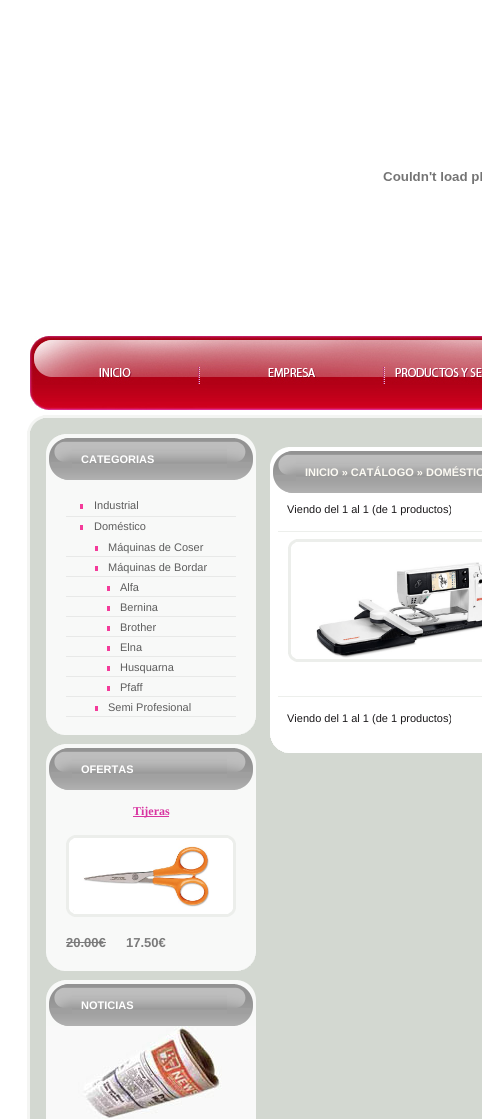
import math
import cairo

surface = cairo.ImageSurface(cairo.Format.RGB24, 482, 1119)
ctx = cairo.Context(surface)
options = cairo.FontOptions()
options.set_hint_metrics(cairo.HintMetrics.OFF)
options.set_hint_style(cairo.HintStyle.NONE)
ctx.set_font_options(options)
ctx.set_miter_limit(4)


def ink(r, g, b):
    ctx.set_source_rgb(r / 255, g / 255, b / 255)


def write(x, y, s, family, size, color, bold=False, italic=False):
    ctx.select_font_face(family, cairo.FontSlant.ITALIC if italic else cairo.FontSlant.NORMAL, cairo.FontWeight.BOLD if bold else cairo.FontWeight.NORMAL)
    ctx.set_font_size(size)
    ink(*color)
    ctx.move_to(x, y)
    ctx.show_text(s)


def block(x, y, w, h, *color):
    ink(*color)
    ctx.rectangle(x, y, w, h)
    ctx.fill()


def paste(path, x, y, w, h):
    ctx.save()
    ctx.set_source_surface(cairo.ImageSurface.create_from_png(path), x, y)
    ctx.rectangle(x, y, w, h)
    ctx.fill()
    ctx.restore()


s1 = dict(family="Liberation Sans", size=11, color=(255, 255, 255), bold=True)
s2 = dict(family="Liberation Sans", size=11, color=(93, 93, 93))
s3 = dict(family="Liberation Serif", size=12, color=(216, 53, 161), bold=True)
s4 = dict(family="Liberation Sans", size=13, color=(123, 123, 123), bold=True)
s5 = dict(family="Liberation Sans", size=11, color=(252, 250, 243), bold=True)
s6 = dict(family="Liberation Sans", size=11, color=(26, 24, 26))

ink(255, 255, 255)
ctx.paint()
paste("pic1.png", 383, 172, 99, 12)
paste("pic2.png", 30, 336, 169, 74)
paste("pic3.png", 199, 336, 185, 74)
paste("pic4.png", 384, 336, 98, 74)
block(30, 418, 452, 701, 211, 216, 209)
block(43, 415, 439, 3, 244, 245, 243)
block(27, 431, 3, 688, 244, 245, 243)
paste("pic5.png", 27, 415, 16, 16)
paste("pic6.png", 46, 434, 26, 17)
paste("pic7.png", 72, 434, 155, 17)
paste("pic8.png", 227, 434, 29, 17)
block(51, 462, 21, 6, 159, 159, 159)
block(46, 462, 3, 6, 248, 249, 248)
paste("pic9.png", 49, 462, 2, 6)
paste("pic10.png", 46, 451, 26, 11)
block(72, 464, 155, 4, 161, 161, 161)
paste("pic11.png", 72, 451, 155, 13)
write(81, 463, "CATEGORIAS", **s1)
block(227, 462, 24, 6, 159, 159, 159)
block(253, 462, 3, 6, 248, 249, 248)
paste("pic12.png", 251, 462, 2, 6)
paste("pic13.png", 227, 451, 29, 11)
paste("pic14.png", 46, 468, 26, 12)
paste("pic15.png", 72, 468, 155, 12)
paste("pic16.png", 227, 468, 29, 12)
block(46, 480, 210, 237, 248, 249, 248)
write(94, 509, "Industrial", **s2)
block(80, 504, 3, 5, 244, 59, 154)
block(66, 516, 170, 1, 232, 233, 232)
write(94, 530, "Doméstico", **s2)
block(80, 525, 3, 5, 244, 59, 154)
block(66, 556, 170, 1, 232, 233, 232)
write(108, 551, "Máquinas de Coser", **s2)
block(95, 546, 3, 5, 244, 59, 154)
block(66, 576, 170, 1, 232, 233, 232)
write(108, 571, "Máquinas de Bordar", **s2)
block(95, 566, 3, 5, 244, 59, 154)
block(66, 596, 170, 1, 232, 233, 232)
write(120, 591, "Alfa", **s2)
block(107, 586, 3, 5, 244, 59, 154)
block(66, 616, 170, 1, 232, 233, 232)
write(120, 611, "Bernina", **s2)
block(107, 606, 3, 5, 244, 59, 154)
block(66, 636, 170, 1, 232, 233, 232)
write(120, 631, "Brother", **s2)
block(107, 626, 3, 5, 244, 59, 154)
block(66, 656, 170, 1, 232, 233, 232)
write(120, 651, "Elna", **s2)
block(107, 646, 3, 5, 244, 59, 154)
block(66, 676, 170, 1, 232, 233, 232)
write(120, 671, "Husquarna", **s2)
block(107, 666, 3, 5, 244, 59, 154)
block(66, 696, 170, 1, 232, 233, 232)
write(120, 691, "Pfaff", **s2)
block(107, 686, 3, 5, 244, 59, 154)
block(66, 716, 170, 1, 232, 233, 232)
write(108, 711, "Semi Profesional", **s2)
block(95, 706, 3, 5, 244, 59, 154)
paste("pic17.png", 46, 717, 18, 18)
block(64, 717, 174, 18, 248, 249, 248)
paste("pic18.png", 238, 717, 18, 18)
paste("pic6.png", 46, 744, 26, 17)
paste("pic7.png", 72, 744, 155, 17)
paste("pic8.png", 227, 744, 29, 17)
block(51, 772, 21, 6, 159, 159, 159)
block(46, 772, 3, 6, 248, 249, 248)
paste("pic9.png", 49, 772, 2, 6)
paste("pic10.png", 46, 761, 26, 11)
block(72, 774, 155, 4, 161, 161, 161)
paste("pic11.png", 72, 761, 155, 13)
write(81, 773, "OFERTAS", **s1)
block(227, 772, 24, 6, 159, 159, 159)
block(253, 772, 3, 6, 248, 249, 248)
paste("pic12.png", 251, 772, 2, 6)
paste("pic13.png", 227, 761, 29, 11)
paste("pic14.png", 46, 778, 26, 12)
paste("pic15.png", 72, 778, 155, 12)
paste("pic16.png", 227, 778, 29, 12)
block(46, 790, 210, 163, 248, 249, 248)
block(133, 816, 36, 1, 216, 53, 161)
write(133, 815, "Tijeras", **s3)
block(69, 838, 164, 76, 255, 255, 255)
block(66, 835, 3, 82, 236, 238, 235)
block(233, 835, 3, 82, 236, 238, 235)
block(69, 835, 164, 3, 236, 238, 235)
block(69, 914, 164, 3, 236, 238, 235)
paste("pic19.png", 66, 835, 8, 8)
paste("pic20.png", 228, 835, 8, 8)
paste("pic21.png", 66, 909, 8, 8)
paste("pic22.png", 228, 909, 8, 8)
paste("pic23.png", 83, 846, 127, 61)
write(66, 947, "20.00€", **s4)
block(66, 942, 40, 1, 123, 123, 123)
write(126, 947, "17.50€", **s4)
paste("pic17.png", 46, 953, 18, 18)
block(64, 953, 174, 18, 248, 249, 248)
paste("pic18.png", 238, 953, 18, 18)
paste("pic6.png", 46, 980, 26, 17)
paste("pic7.png", 72, 980, 155, 17)
paste("pic8.png", 227, 980, 29, 17)
block(51, 1008, 21, 6, 159, 159, 159)
block(46, 1008, 3, 6, 248, 249, 248)
paste("pic9.png", 49, 1008, 2, 6)
paste("pic10.png", 46, 997, 26, 11)
block(72, 1010, 155, 4, 161, 161, 161)
paste("pic11.png", 72, 997, 155, 13)
write(81, 1009, "NOTICIAS", **s1)
block(227, 1008, 24, 6, 159, 159, 159)
block(253, 1008, 3, 6, 248, 249, 248)
paste("pic12.png", 251, 1008, 2, 6)
paste("pic13.png", 227, 997, 29, 11)
paste("pic14.png", 46, 1014, 26, 12)
paste("pic15.png", 72, 1014, 155, 12)
paste("pic16.png", 227, 1014, 29, 12)
paste("pic24.png", 46, 1026, 210, 93)
block(270, 447, 212, 288, 255, 255, 255)
paste("pic25.png", 270, 447, 18, 17)
paste("pic26.png", 274, 451, 22, 13)
paste("pic27.png", 296, 451, 186, 13)
block(275, 475, 21, 6, 159, 159, 159)
paste("pic28.png", 273, 475, 2, 6)
paste("pic29.png", 273, 464, 23, 11)
block(296, 477, 186, 4, 161, 161, 161)
paste("pic30.png", 296, 464, 186, 13)
write(305, 476, "INICIO » CATÁLOGO » DOMÉSTIC", **s5)
paste("pic31.png", 274, 481, 22, 12)
paste("pic32.png", 296, 481, 186, 12)
write(287, 513, "Viendo del 1 al 1 (de 1 productos)", **s6)
block(278, 531, 204, 1, 237, 239, 236)
block(288, 539, 3, 123, 236, 238, 235)
block(291, 539, 191, 3, 236, 238, 235)
block(291, 659, 191, 3, 236, 238, 235)
paste("pic33.png", 288, 539, 8, 8)
paste("pic34.png", 288, 654, 8, 8)
paste("pic35.png", 316, 562, 166, 96)
block(278, 696, 204, 1, 237, 239, 236)
write(287, 722, "Viendo del 1 al 1 (de 1 productos)", **s6)
paste("pic36.png", 270, 735, 18, 18)
block(288, 735, 194, 18, 255, 255, 255)
surface.write_to_png("screenshot.png")
